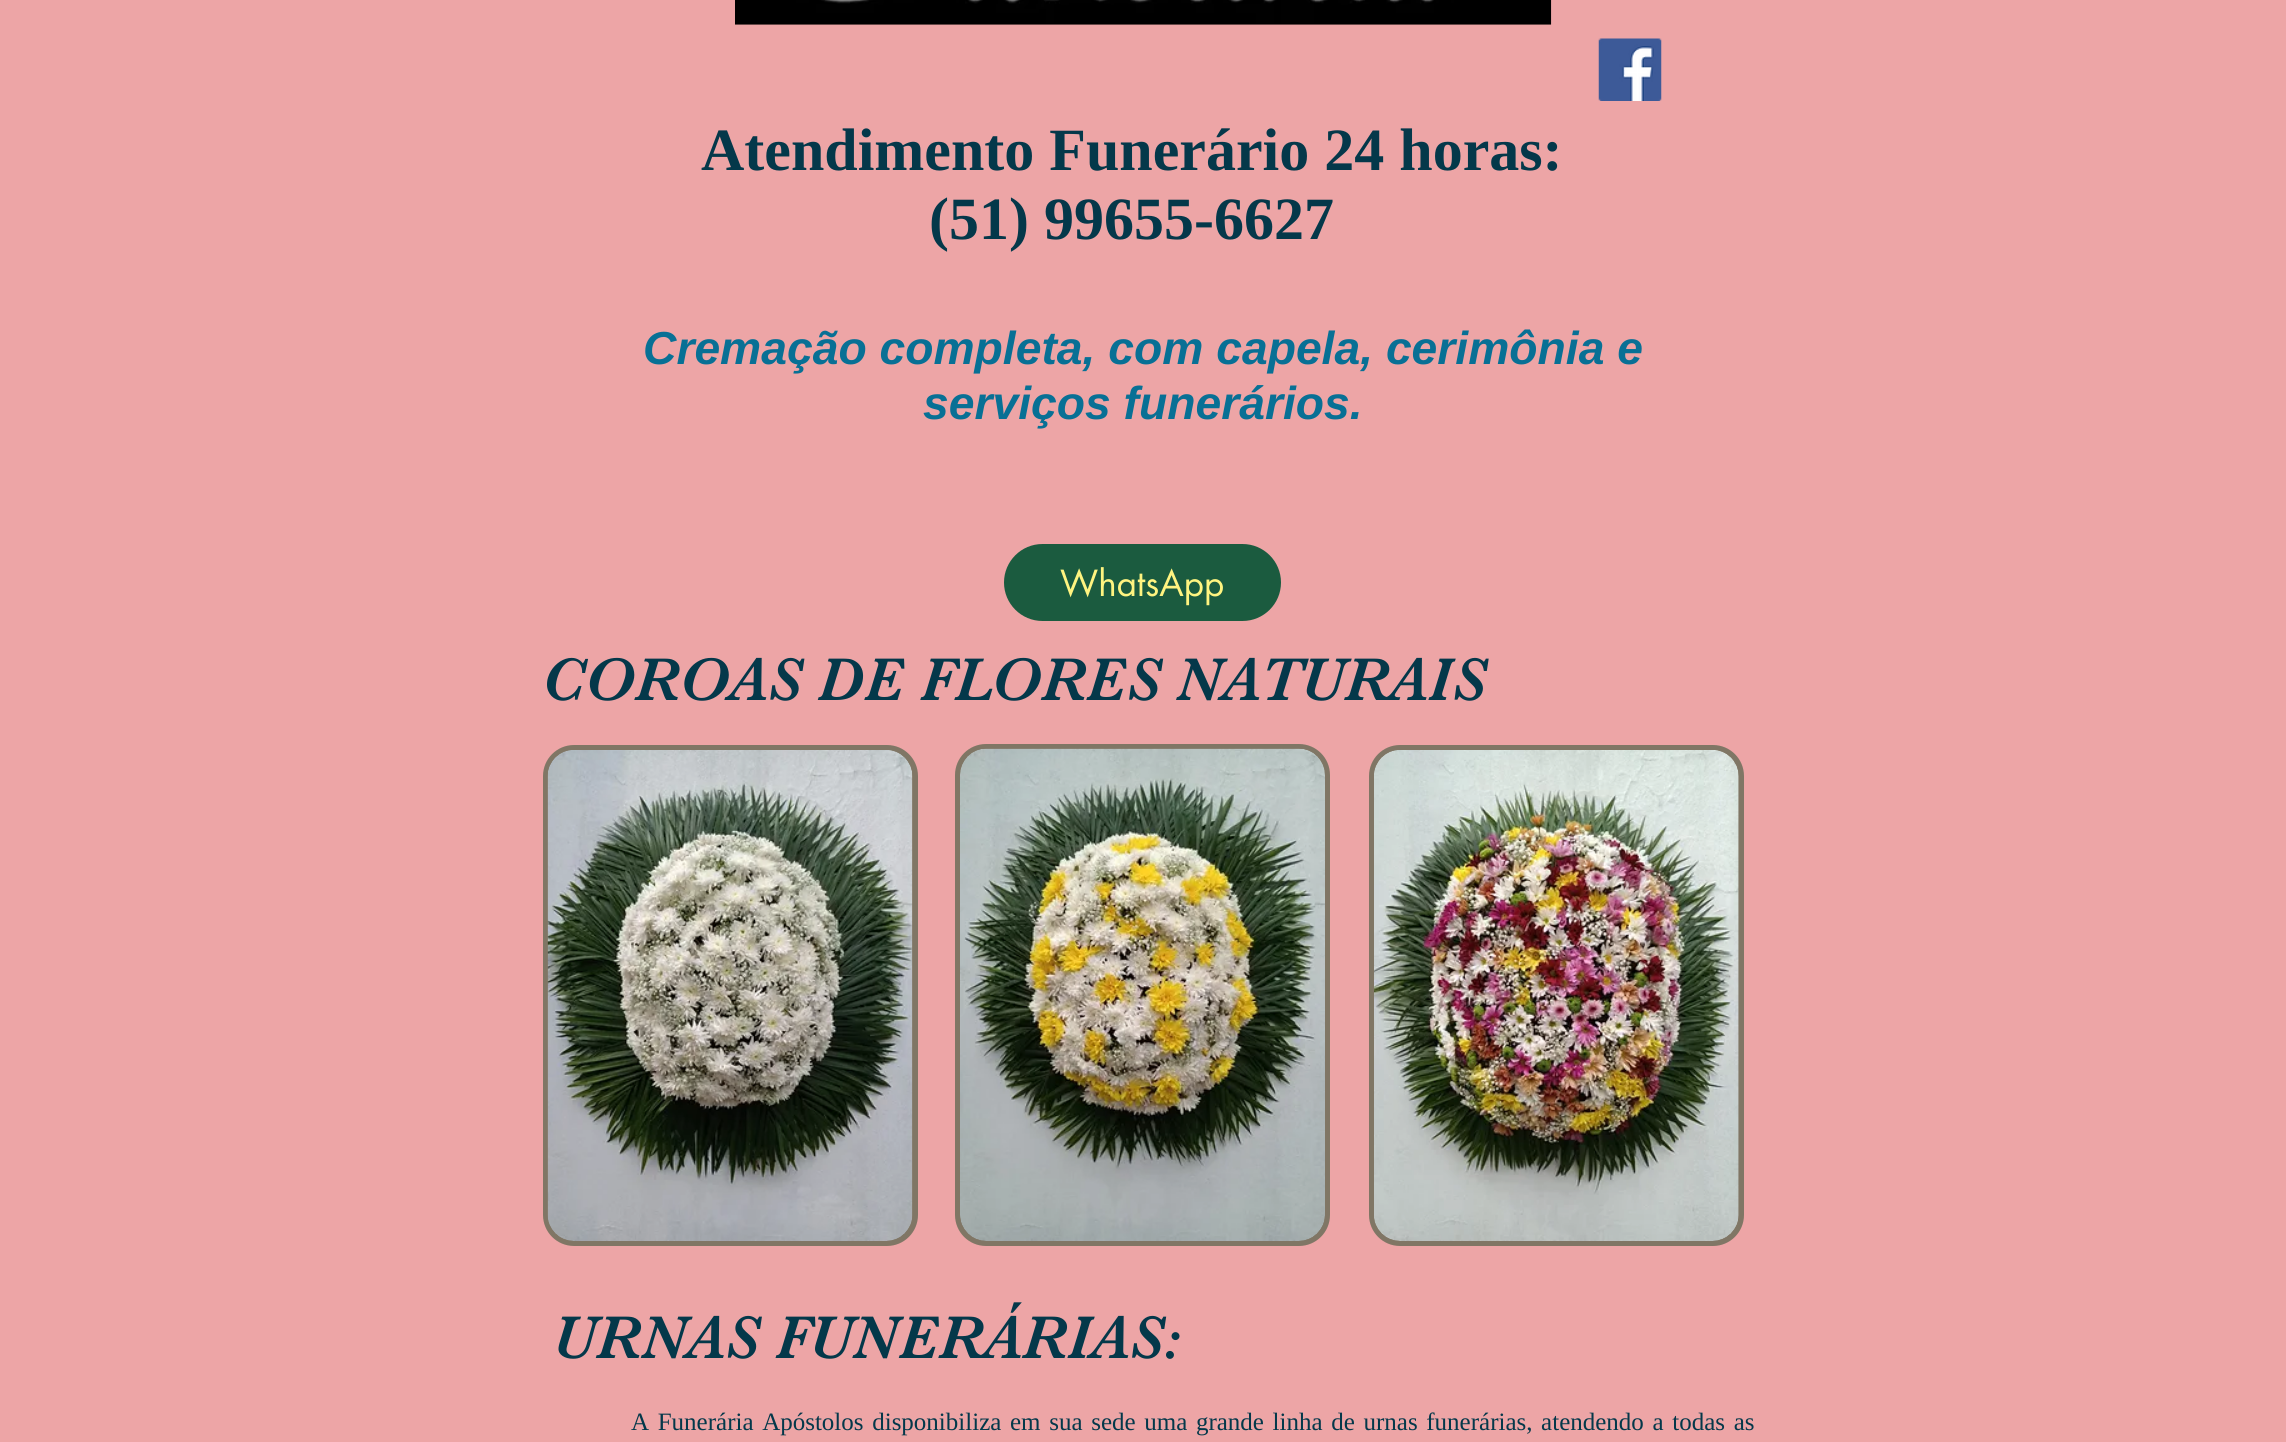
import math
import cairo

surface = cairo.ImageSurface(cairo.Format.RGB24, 2286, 1442)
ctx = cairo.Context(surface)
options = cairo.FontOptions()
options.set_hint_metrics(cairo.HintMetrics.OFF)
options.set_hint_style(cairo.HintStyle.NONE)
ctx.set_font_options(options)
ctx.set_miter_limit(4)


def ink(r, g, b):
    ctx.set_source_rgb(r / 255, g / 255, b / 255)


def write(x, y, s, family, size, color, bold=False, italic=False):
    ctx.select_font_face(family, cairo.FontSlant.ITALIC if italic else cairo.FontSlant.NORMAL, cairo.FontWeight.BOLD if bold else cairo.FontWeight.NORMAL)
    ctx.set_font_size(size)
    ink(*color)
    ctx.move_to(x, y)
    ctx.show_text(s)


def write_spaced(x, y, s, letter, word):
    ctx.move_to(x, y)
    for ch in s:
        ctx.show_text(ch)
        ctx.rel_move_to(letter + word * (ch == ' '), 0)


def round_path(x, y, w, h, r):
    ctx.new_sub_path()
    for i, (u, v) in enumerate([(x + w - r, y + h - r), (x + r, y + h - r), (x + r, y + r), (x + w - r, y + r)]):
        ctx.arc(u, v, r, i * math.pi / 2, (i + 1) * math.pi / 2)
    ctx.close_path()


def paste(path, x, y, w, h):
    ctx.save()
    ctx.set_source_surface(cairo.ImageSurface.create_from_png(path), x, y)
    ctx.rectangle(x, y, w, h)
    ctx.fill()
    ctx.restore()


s1 = dict(family="Liberation Serif", size=60, color=(4, 56, 74), bold=True)
s2 = dict(family="Liberation Sans", size=46.25, color=(8, 112, 149), bold=True, italic=True)
s3 = dict(family="futura", size=35, color=(255, 244, 128))
s4 = dict(family="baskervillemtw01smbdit", size=62.5, color=(4, 56, 74))

ink(237, 165, 166)
ctx.paint()
paste("pic1.png", 735, 0, 817, 25)
paste("pic2.png", 1598, 38, 64, 63)
write(701, 170, "Atendimento Funerário 24 horas:", **s1)
write(929, 239, "(51) 99655-6627", **s1)
write(643, 364, "Cremação completa, com capela, cerimônia e", **s2)
write(923, 419, "serviços funerários.", **s2)
ink(27, 91, 63)
round_path(1004, 544, 277, 77, 38.5)
ctx.fill()
write(1060, 596, "WhatsApp", **s3)
write(542, 700, "COROAS DE FLORES NATURAIS", **s4)
ink(128, 118, 101)
round_path(545.5, 747.5, 370, 496, 28.5)
ctx.fill_preserve()
ctx.set_line_width(5)
ctx.stroke()
paste("pic3.png", 547, 750, 366, 491)
round_path(957.5, 746.5, 370, 497, 28.5)
ctx.fill_preserve()
ctx.stroke()
paste("pic4.png", 960, 748, 365, 493)
round_path(1371.5, 747.5, 370, 496, 28.5)
ctx.fill_preserve()
ctx.stroke()
paste("pic5.png", 1374, 750, 365, 491)
write(553, 1358, "URNAS FUNERÁRIAS:", **s4)
ctx.select_font_face("Liberation Serif")
ctx.set_font_size(25)
write_spaced(631, 1430, "A Funerária Apóstolos disponibiliza em sua sede uma grande linha de urnas funerárias, atendendo a todas as", 0, 2.4)
surface.write_to_png("screenshot.png")
